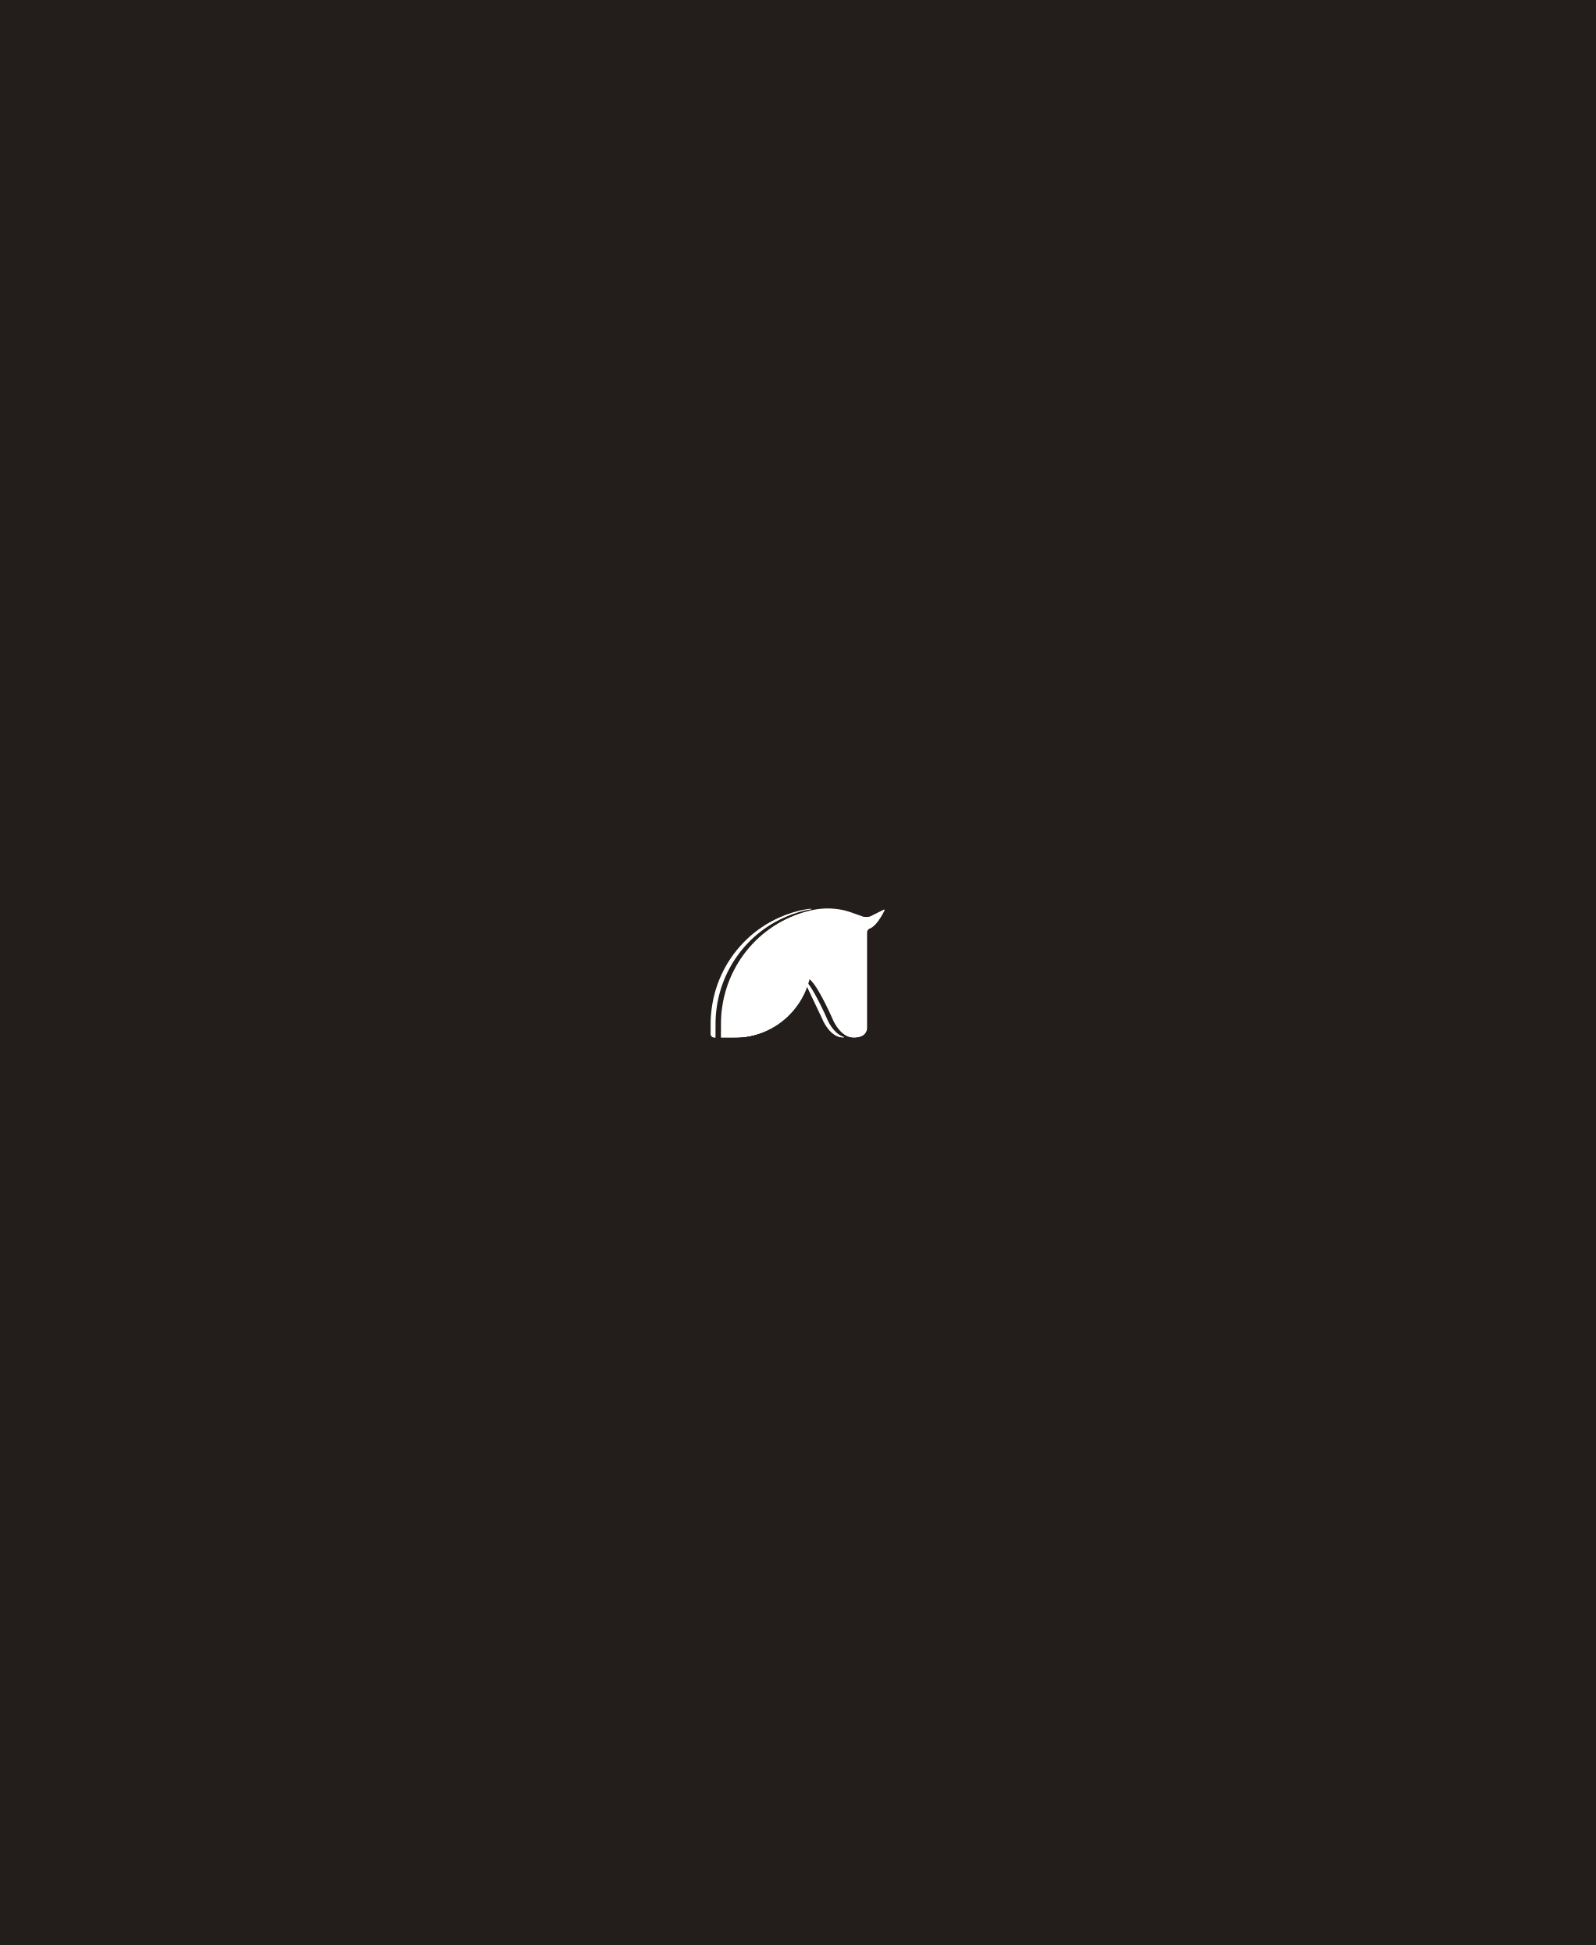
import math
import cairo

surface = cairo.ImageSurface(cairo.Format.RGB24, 1596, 1945)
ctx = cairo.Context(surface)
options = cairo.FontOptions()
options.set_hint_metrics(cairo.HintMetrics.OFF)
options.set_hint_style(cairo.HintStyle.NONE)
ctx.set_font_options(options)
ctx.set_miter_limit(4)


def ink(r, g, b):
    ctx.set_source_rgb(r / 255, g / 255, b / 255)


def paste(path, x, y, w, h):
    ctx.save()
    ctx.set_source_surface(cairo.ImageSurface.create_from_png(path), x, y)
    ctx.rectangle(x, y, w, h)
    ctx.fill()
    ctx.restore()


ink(35, 29, 27)
ctx.paint()
paste("pic1.png", 710, 908, 175, 130)
surface.write_to_png("screenshot.png")
